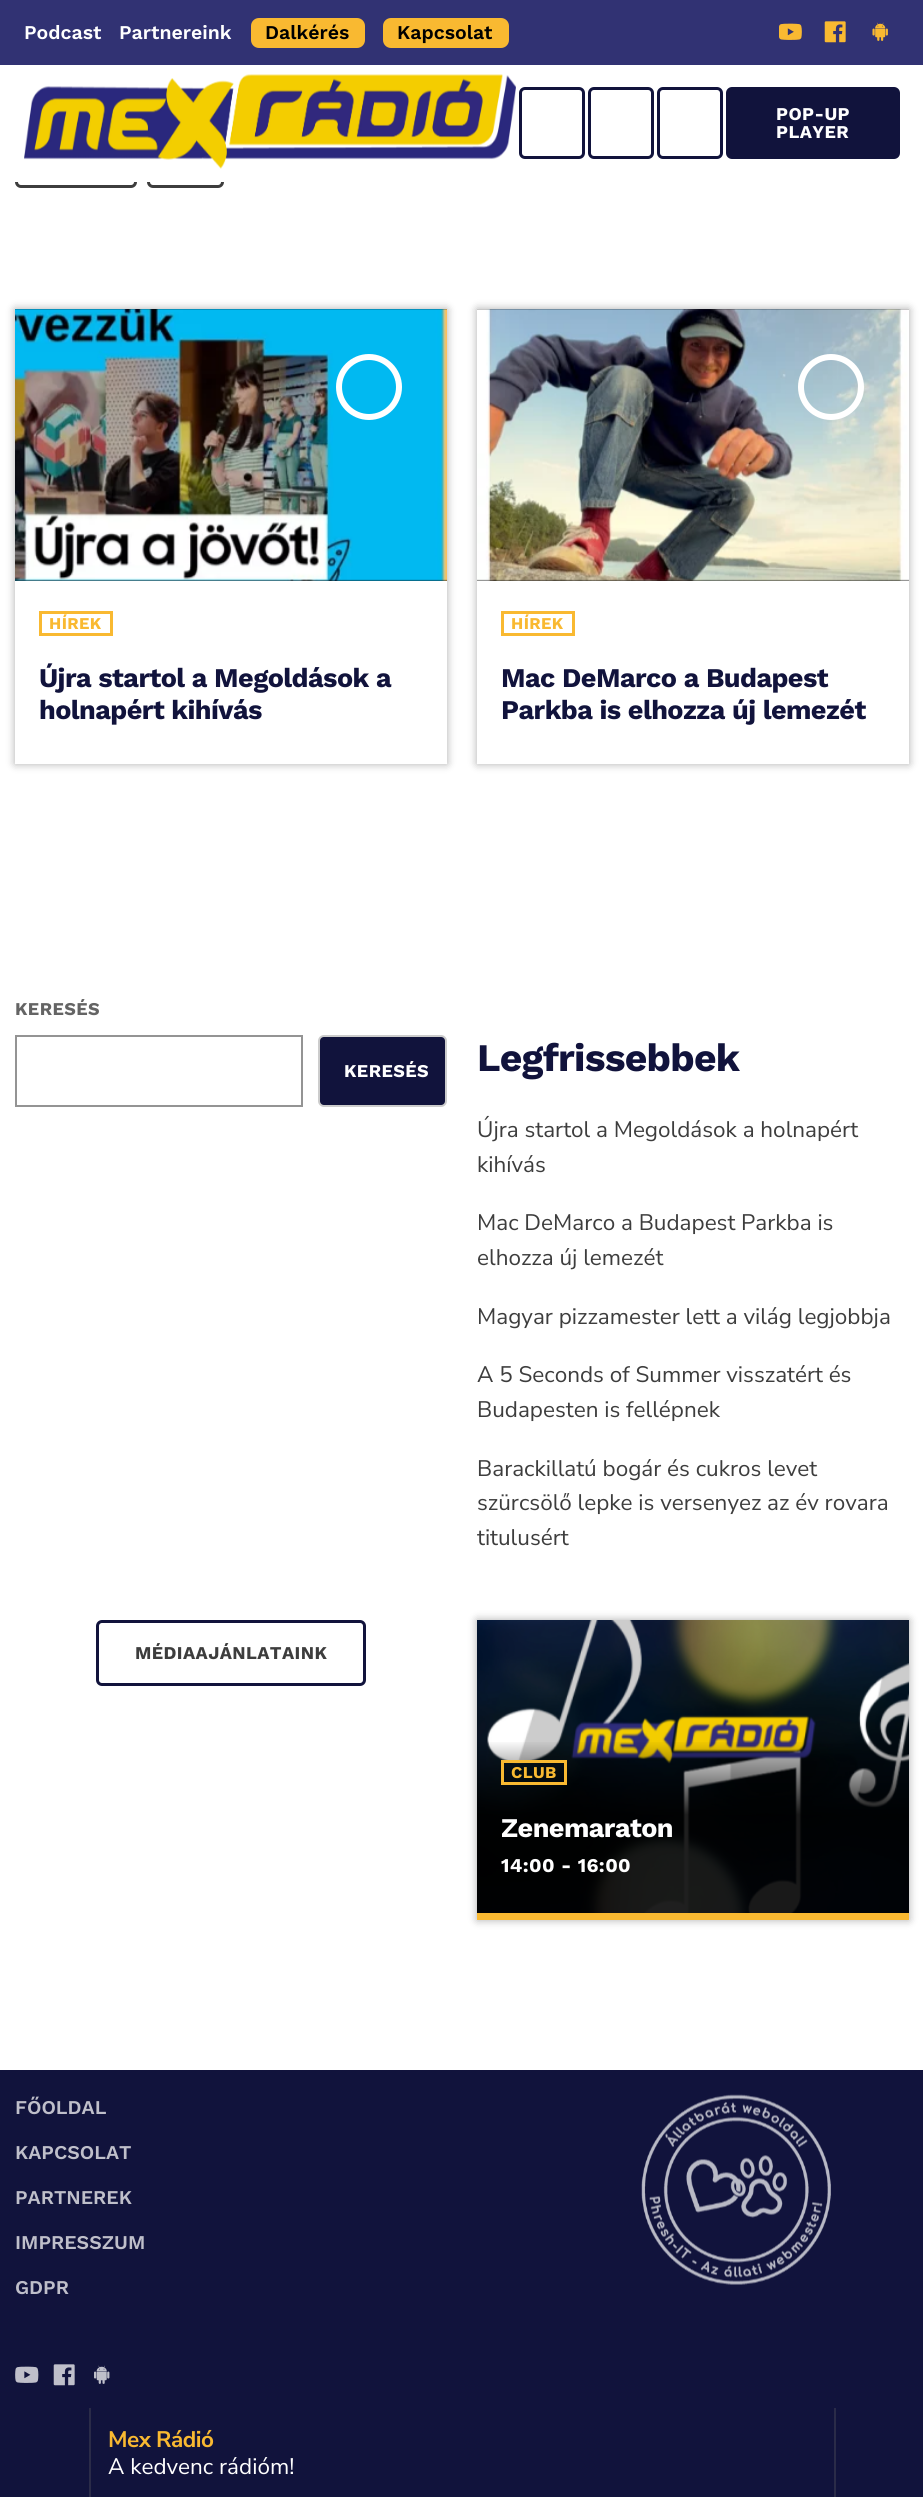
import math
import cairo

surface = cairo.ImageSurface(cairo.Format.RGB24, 923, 2497)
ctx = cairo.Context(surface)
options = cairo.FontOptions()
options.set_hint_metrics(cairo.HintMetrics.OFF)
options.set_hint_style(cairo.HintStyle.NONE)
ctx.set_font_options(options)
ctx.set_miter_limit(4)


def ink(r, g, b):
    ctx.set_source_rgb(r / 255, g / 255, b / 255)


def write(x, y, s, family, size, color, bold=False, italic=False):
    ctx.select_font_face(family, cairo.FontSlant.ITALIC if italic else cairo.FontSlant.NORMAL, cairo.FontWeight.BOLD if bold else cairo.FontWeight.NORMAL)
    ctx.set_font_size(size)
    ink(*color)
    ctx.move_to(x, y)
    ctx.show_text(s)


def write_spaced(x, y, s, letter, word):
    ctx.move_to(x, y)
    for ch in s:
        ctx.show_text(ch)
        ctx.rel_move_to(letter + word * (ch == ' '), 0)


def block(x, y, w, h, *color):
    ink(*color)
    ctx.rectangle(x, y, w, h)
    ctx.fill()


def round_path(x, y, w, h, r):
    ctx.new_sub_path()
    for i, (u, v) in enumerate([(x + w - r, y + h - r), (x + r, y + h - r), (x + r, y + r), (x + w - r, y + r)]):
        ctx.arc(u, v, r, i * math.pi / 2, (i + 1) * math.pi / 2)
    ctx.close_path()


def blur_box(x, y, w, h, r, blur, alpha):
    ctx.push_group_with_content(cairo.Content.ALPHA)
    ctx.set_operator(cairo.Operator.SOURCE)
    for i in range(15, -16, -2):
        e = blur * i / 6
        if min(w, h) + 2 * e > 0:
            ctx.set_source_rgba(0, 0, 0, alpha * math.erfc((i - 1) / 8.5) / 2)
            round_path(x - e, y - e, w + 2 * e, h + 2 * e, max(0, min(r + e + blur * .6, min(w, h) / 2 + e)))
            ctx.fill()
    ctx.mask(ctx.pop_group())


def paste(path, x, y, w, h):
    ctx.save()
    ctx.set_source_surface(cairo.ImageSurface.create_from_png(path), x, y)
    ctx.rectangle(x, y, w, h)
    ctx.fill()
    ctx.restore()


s1 = dict(family="Work Sans SemiBold", size=19.5, color=(255, 255, 255))
s2 = dict(family="Work Sans SemiBold", size=19.5, color=(0, 0, 0))
s3 = dict(family="Nunito Sans", size=22.5, color=(255, 255, 255))
s4 = dict(family="Nunito Sans", size=22.5, color=(61, 61, 61))
s5 = dict(family="Work Sans SemiBold", size=19.5, color=(191, 191, 202))

ink(17, 19, 60)
ctx.paint()
block(0, 182, 923, 1888, 255, 255, 255)
round_path(16.5, 151.5, 119, 35, 4.5)
ink(61, 61, 61)
ctx.set_line_width(3)
ctx.stroke()
round_path(148.5, 151.5, 74, 35, 4.5)
ctx.stroke()
block(0, 65, 923, 117, 255, 255, 255)
block(0, 0, 923, 65, 49, 50, 115)
write(24, 39, "Podcast", **s1)
write(119, 39, "Partnereink", **s1)
ink(249, 185, 49)
round_path(251, 18, 114, 30, 8)
ctx.fill()
write(265, 39, "Dalkérés", **s2)
ink(249, 185, 49)
round_path(383, 18, 126, 30, 8)
ctx.fill()
write(397, 39, "Kapcsolat", **s2)
paste("pic1.png", 779, 23, 23, 17)
paste("pic2.png", 824, 21, 22, 22)
paste("pic3.png", 872, 22, 16, 19)
paste("pic4.png", 24, 74, 492, 95)
round_path(520.5, 88.5, 63, 69, 4.5)
ink(17, 19, 60)
ctx.stroke()
round_path(589.5, 88.5, 63, 69, 4.5)
ctx.stroke()
round_path(658.5, 88.5, 63, 69, 4.5)
ctx.stroke()
round_path(726, 87, 174, 72, 6)
ctx.fill()
ctx.select_font_face("Work Sans", cairo.FontSlant.NORMAL, cairo.FontWeight.BOLD)
ctx.set_font_size(18)
ink(255, 255, 255)
write_spaced(776, 120, "POP-UP", 0.4, 0)
write_spaced(776, 138, "PLAYER", 0.4, 0)
block(89, 2408, 2, 89, 42, 43, 72)
ctx.select_font_face("Nunito Sans", cairo.FontSlant.NORMAL, cairo.FontWeight.BOLD)
ctx.set_font_size(22.5)
ink(249, 185, 49)
write_spaced(108, 2447, "Mex Rádió", -0.5, 0)
write(108, 2474, "A kedvenc rádióm!", **s3)
block(834, 2408, 2, 89, 42, 43, 72)
ink(0, 0, 0)
blur_box(15, 309, 432, 455, 0, 4.5, 0.32)
block(15, 581, 432, 183, 255, 255, 255)
block(15, 309, 432, 272, 17, 17, 17)
paste("pic5.png", 15, 309, 432, 272)
ctx.arc(369, 387, 30, 0, 2 * math.pi)
ink(255, 255, 255)
ctx.set_line_width(6)
ctx.stroke()
ctx.rectangle(40.5, 612.5, 71, 22)
ink(249, 185, 49)
ctx.set_line_width(3)
ctx.stroke()
ctx.select_font_face("Work Sans", cairo.FontSlant.NORMAL, cairo.FontWeight.BOLD)
ctx.set_font_size(16.5)
write_spaced(49, 629, "HÍREK", 0.4, 0)
ctx.set_font_size(27)
ink(17, 19, 60)
write_spaced(39, 687, "Újra startol a Megoldások a", -0.55, 0)
write_spaced(39, 719, "holnapért kihívás", -0.55, 0)
ink(0, 0, 0)
blur_box(477, 309, 432, 455, 0, 4.5, 0.32)
block(477, 581, 432, 183, 255, 255, 255)
block(477, 309, 432, 272, 17, 17, 17)
paste("pic6.png", 477, 309, 432, 272)
ctx.arc(831, 387, 30, 0, 2 * math.pi)
ink(255, 255, 255)
ctx.set_line_width(6)
ctx.stroke()
ctx.rectangle(502.5, 612.5, 71, 22)
ink(249, 185, 49)
ctx.set_line_width(3)
ctx.stroke()
ctx.set_font_size(16.5)
write_spaced(511, 629, "HÍREK", 0.4, 0)
ctx.set_font_size(27)
ink(17, 19, 60)
write_spaced(501, 687, "Mac DeMarco a Budapest", -0.55, 0)
write_spaced(501, 719, "Parkba is elhozza új lemezét", -0.55, 0)
ctx.set_font_size(18)
ink(100, 100, 100)
write_spaced(15, 1015, "KERESÉS", 0.4, 0)
ctx.rectangle(16, 1036, 286, 70)
ink(148, 148, 148)
ctx.set_line_width(2)
ctx.stroke()
ink(17, 19, 60)
round_path(319, 1036, 127, 70, 5)
ctx.fill_preserve()
ink(204, 204, 204)
ctx.stroke()
ink(255, 255, 255)
write_spaced(344, 1077, "KERESÉS", 0.4, 0)
ctx.set_font_size(39)
ink(17, 19, 60)
write_spaced(477, 1071, "Legfrissebbek", -0.75, 0)
write(477, 1137, "Újra startol a Megoldások a holnapért", **s4)
write(477, 1172, "kihívás", **s4)
write(477, 1230, "Mac DeMarco a Budapest Parkba is", **s4)
write(477, 1265, "elhozza új lemezét", **s4)
write(477, 1324, "Magyar pizzamester lett a világ legjobbja", **s4)
write(477, 1382, "A 5 Seconds of Summer visszatért és", **s4)
write(477, 1417, "Budapesten is fellépnek", **s4)
write(477, 1476, "Barackillatú bogár és cukros levet", **s4)
write(477, 1510, "szürcsölő lepke is versenyez az év rovara", **s4)
write(477, 1545, "titulusért", **s4)
round_path(97.5, 1621.5, 267, 63, 4.5)
ink(17, 19, 60)
ctx.set_line_width(3)
ctx.stroke()
ctx.select_font_face("Work Sans", cairo.FontSlant.NORMAL, cairo.FontWeight.BOLD)
ctx.set_font_size(18)
ink(61, 61, 61)
write_spaced(135, 1659, "MÉDIAAJÁNLATAINK", 0.4, 0)
ink(0, 0, 0)
blur_box(477, 1620, 432, 300, 0, 4.5, 0.32)
paste("pic7.png", 477, 1620, 432, 293)
gradient = cairo.LinearGradient(693, 1620, 693, 1920)
gradient.add_color_stop_rgba(0, 0, 0, 0, 0)
gradient.add_color_stop_rgba(0.4, 0, 0, 0, 0)
gradient.add_color_stop_rgba(0.65, 0, 0, 0, 0.88)
gradient.add_color_stop_rgba(1, 0, 0, 0, 0.88)
ctx.set_source(gradient)
ctx.rectangle(477, 1742, 432, 171)
ctx.fill()
ctx.rectangle(502.5, 1761.5, 63, 22)
ink(249, 185, 49)
ctx.stroke()
ctx.set_font_size(16.5)
write_spaced(511, 1778, "CLUB", 0.4, 0)
ctx.set_font_size(27)
ink(255, 255, 255)
write_spaced(501, 1837, "Zenemaraton", -0.55, 0)
ctx.set_font_size(19.5)
write_spaced(501, 1872, "14:00 - 16:00", 0.4, 0)
block(477, 1913, 432, 7, 249, 185, 49)
write(15, 2114, "FŐOLDAL", **s5)
write(15, 2159, "KAPCSOLAT", **s5)
write(15, 2204, "PARTNEREK", **s5)
write(15, 2249, "IMPRESSZUM", **s5)
write(15, 2294, "GDPR", **s5)
paste("pic8.png", 15, 2366, 24, 17)
paste("pic9.png", 53, 2364, 22, 22)
paste("pic10.png", 94, 2365, 16, 19)
paste("pic11.png", 641, 2094, 190, 191)
surface.write_to_png("screenshot.png")
